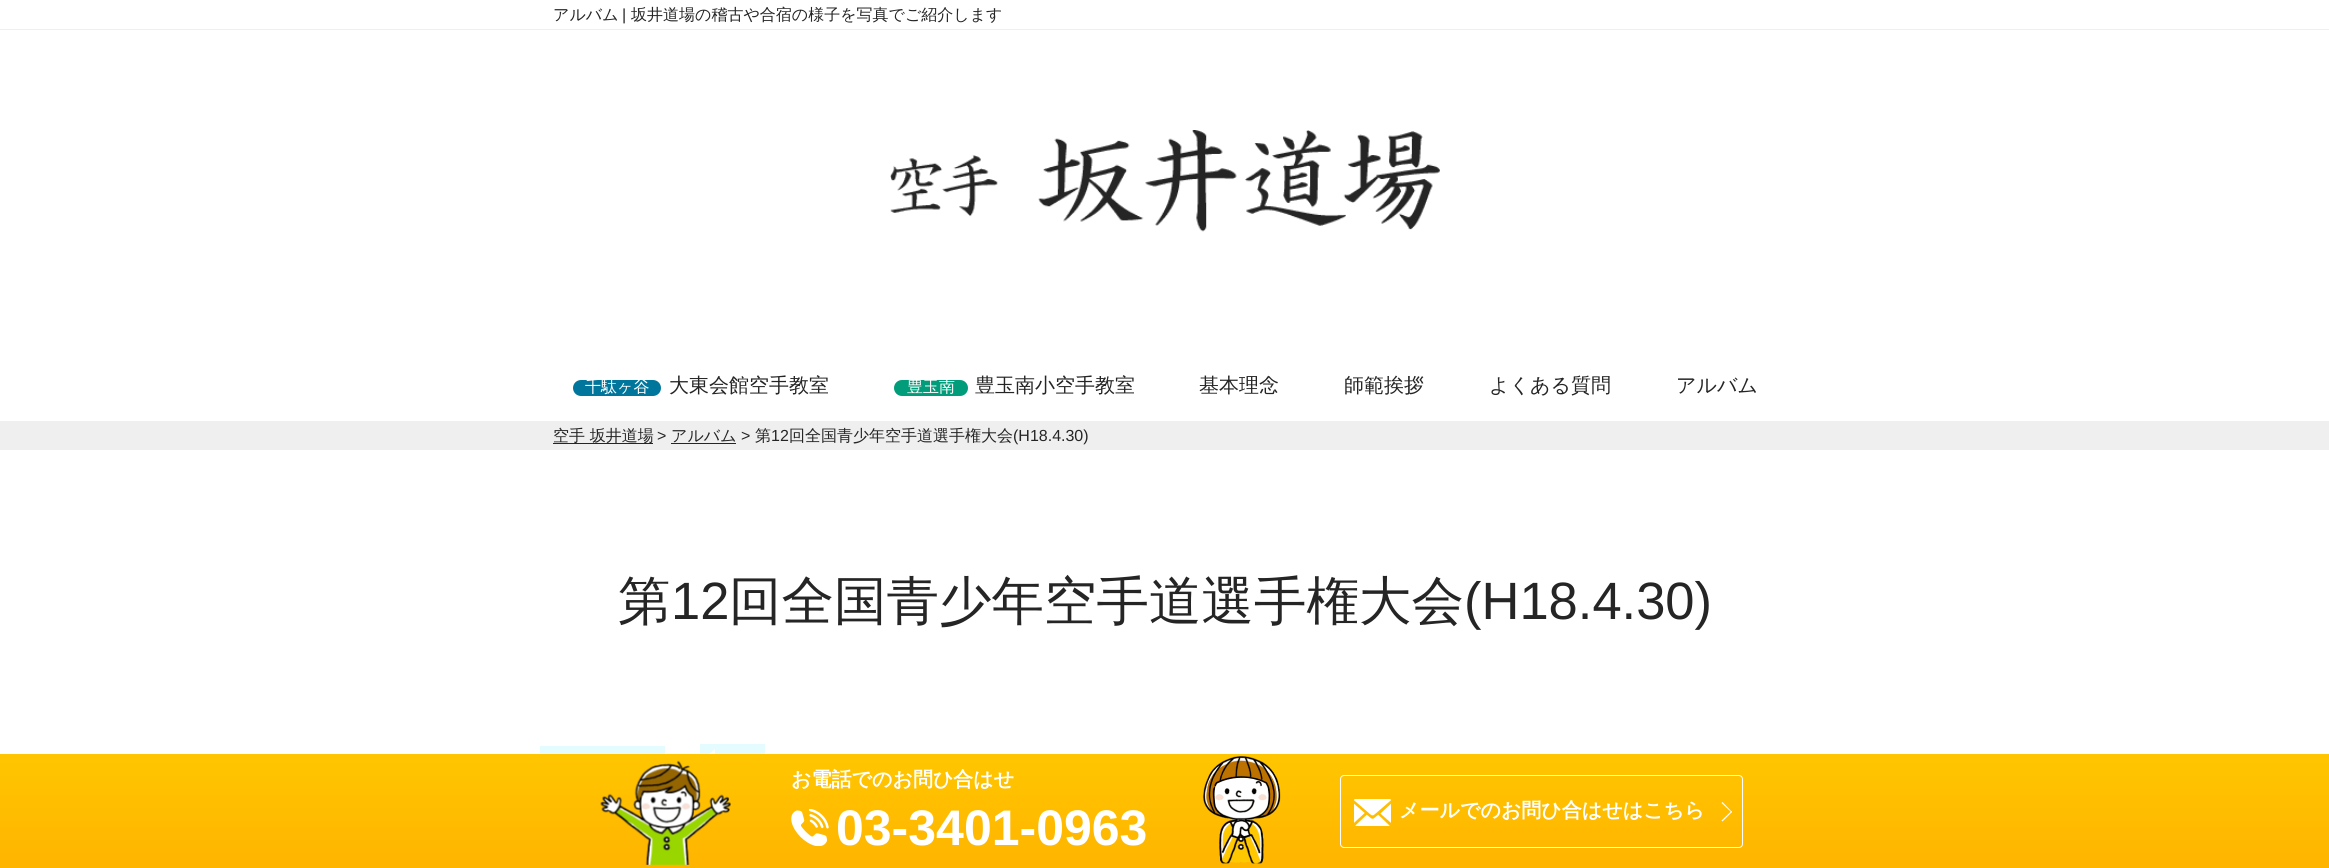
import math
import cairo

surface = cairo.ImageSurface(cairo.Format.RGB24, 2329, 868)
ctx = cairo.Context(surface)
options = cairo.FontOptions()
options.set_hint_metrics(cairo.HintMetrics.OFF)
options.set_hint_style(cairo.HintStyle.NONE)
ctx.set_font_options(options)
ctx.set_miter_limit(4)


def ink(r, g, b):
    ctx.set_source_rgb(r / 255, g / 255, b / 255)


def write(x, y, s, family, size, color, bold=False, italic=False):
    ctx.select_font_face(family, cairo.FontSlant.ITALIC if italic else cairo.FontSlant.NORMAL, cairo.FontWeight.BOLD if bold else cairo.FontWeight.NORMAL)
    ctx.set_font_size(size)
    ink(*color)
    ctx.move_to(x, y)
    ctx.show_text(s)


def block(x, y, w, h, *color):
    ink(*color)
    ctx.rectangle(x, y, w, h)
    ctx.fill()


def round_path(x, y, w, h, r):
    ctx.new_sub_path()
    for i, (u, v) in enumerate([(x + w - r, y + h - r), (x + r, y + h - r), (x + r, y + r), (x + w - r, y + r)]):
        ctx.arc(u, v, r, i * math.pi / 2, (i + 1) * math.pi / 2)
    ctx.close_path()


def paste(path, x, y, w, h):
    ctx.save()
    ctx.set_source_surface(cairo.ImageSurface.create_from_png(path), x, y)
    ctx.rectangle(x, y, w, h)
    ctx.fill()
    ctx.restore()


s1 = dict(family="WenQuanYi Zen Hei Medium", size=16, color=(37, 37, 37))
s2 = dict(family="Liberation Sans", size=16, color=(37, 37, 37))
s3 = dict(family="WenQuanYi Zen Hei Medium", size=16, color=(255, 255, 255))
s4 = dict(family="WenQuanYi Zen Hei Medium", size=20, color=(37, 37, 37))
s5 = dict(family="WenQuanYi Zen Hei Medium", size=52.5, color=(37, 37, 37))
s6 = dict(family="Liberation Sans", size=52.5, color=(37, 37, 37))
s7 = dict(family="WenQuanYi Zen Hei", size=20, color=(255, 255, 255), bold=True)
s8 = dict(family="Liberation Sans", size=50, color=(255, 255, 255), bold=True)

ink(255, 255, 255)
ctx.paint()
block(0, 29, 2329, 1, 239, 239, 239)
write(553, 20, "アルバム", **s1)
write(622, 20, "|", **s2)
write(631, 20, "坂井道場の稽古や合宿の様子を写真でご紹介します", **s1)
paste("pic1.png", 890, 130, 550, 102)
ink(1, 118, 156)
round_path(573, 380, 88, 16, 8)
ctx.fill()
write(585, 392, "千駄ヶ谷", **s3)
write(669, 392, "大東会館空手教室", **s4)
ink(1, 156, 121)
round_path(894, 380, 74, 16, 8)
ctx.fill()
write(907, 392, "豊玉南", **s3)
write(975, 392, "豊玉南小空手教室", **s4)
write(1199, 392, "基本理念", **s4)
write(1344, 392, "師範挨拶", **s4)
write(1489, 392, "よくある質問", **s4)
write(1676, 392, "アルバム", **s4)
block(0, 421, 2329, 29, 239, 239, 239)
block(553, 443, 100, 1, 37, 37, 37)
write(553, 441, "空手 坂井道場", **s1)
write(657, 441, ">", **s2)
write(671, 441, "アルバム", **s1)
block(671, 443, 65, 1, 37, 37, 37)
write(741, 441, ">", **s2)
write(755, 441, "第", **s1)
write(771, 441, "12", **s2)
write(789, 441, "回全国青少年空手道選手権大会", **s1)
write(1013, 441, "(H18.4.30)", **s2)
write(618, 619, "第", **s5)
write(671, 619, "12", **s6)
write(729, 619, "回全国青少年空手道選手権大会", **s5)
write(1464, 619, "(H18.4.30)", **s6)
block(540, 746, 125, 8, 228, 252, 255)
block(700, 744, 65, 10, 228, 252, 255)
ink(255, 255, 255)
ctx.new_path()
ctx.move_to(715, 749)
ctx.line_to(715, 776)
ctx.line_to(700, 762.5)
ctx.close_path()
ctx.fill()
gradient = cairo.LinearGradient(1165, 754, 1165, 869)
gradient.add_color_stop_rgba(0, 1, 0.776, 0, 1)
gradient.add_color_stop_rgba(1, 1, 0.706, 0, 1)
ctx.set_source(gradient)
ctx.rectangle(0, 754, 2329, 114)
ctx.fill()
paste("pic2.png", 600, 760, 131, 105)
write(791, 786, "お電話でのお問ひ合はせ", **s7)
paste("pic3.png", 791, 809, 38, 37)
write(836, 845, "03-3401-0963", **s8)
paste("pic4.png", 1203, 756, 78, 108)
round_path(1340.5, 775.5, 402, 72, 3.5)
ctx.set_line_width(1)
ctx.stroke()
paste("pic5.png", 1354, 799, 37, 27)
write(1399, 817, "メールでのお問ひ合はせはこちら", **s7)
ctx.new_path()
ctx.move_to(1722.5, 802)
ctx.line_to(1732, 812)
ctx.line_to(1731.5, 812.5)
ctx.line_to(1721.5, 803)
ctx.close_path()
ctx.fill()
ctx.new_path()
ctx.move_to(1731.5, 811)
ctx.line_to(1732, 812)
ctx.line_to(1722.5, 821.5)
ctx.line_to(1721.5, 820.5)
ctx.close_path()
ctx.fill()
surface.write_to_png("screenshot.png")
